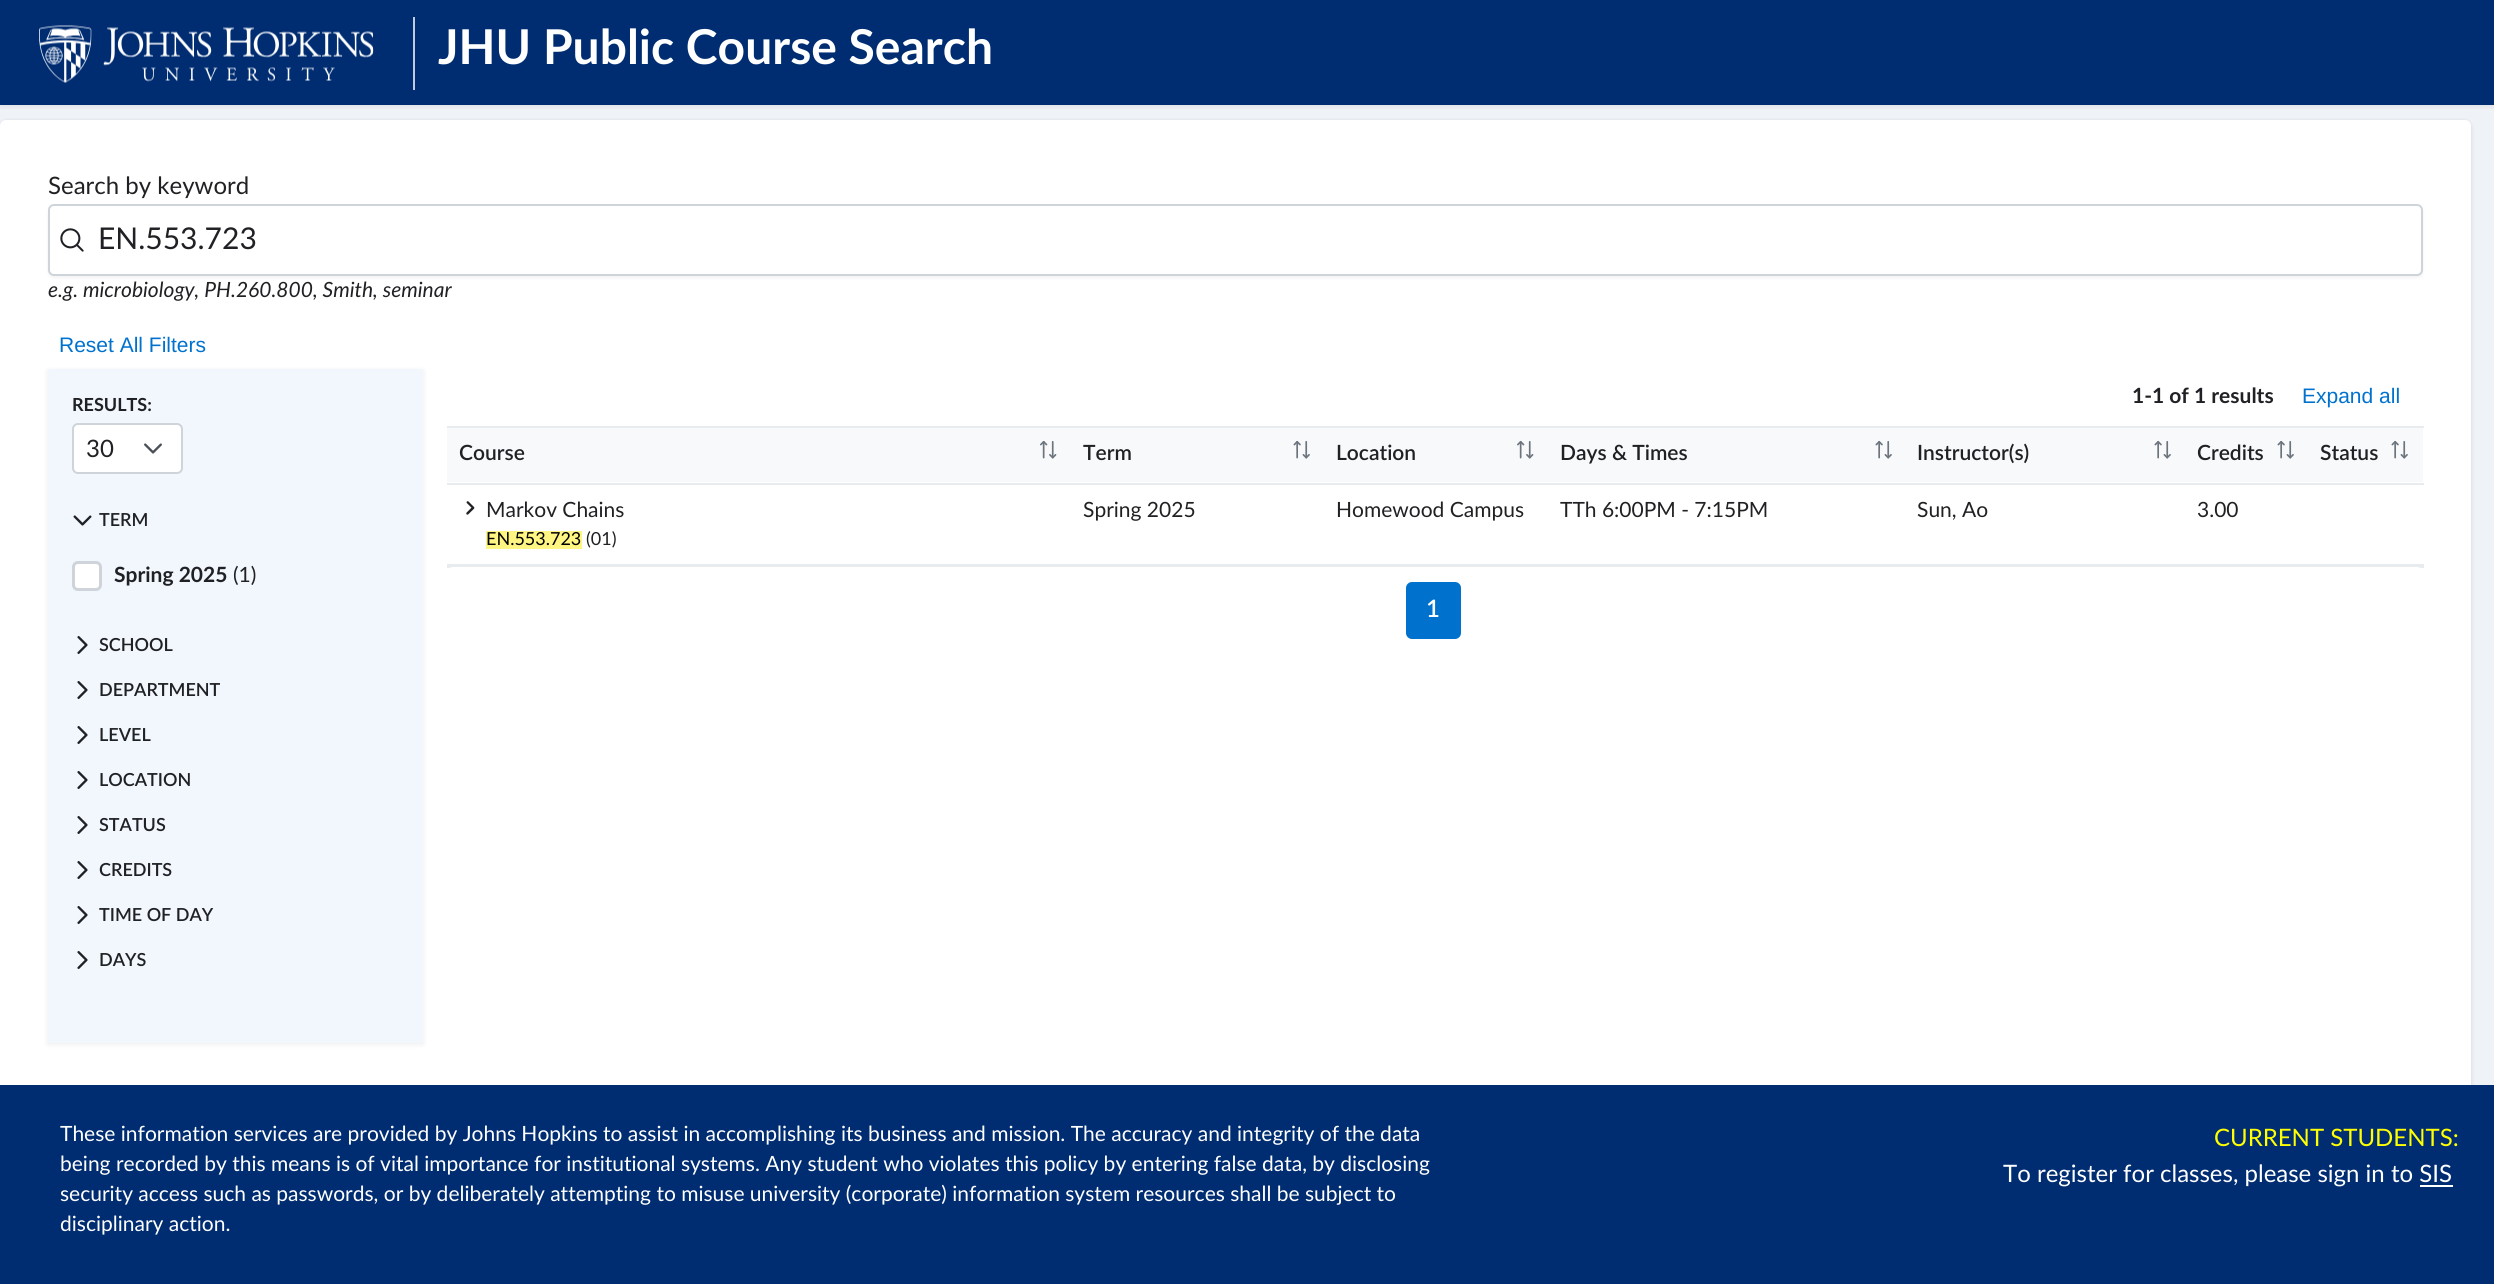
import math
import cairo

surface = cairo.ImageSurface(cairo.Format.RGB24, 2494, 1284)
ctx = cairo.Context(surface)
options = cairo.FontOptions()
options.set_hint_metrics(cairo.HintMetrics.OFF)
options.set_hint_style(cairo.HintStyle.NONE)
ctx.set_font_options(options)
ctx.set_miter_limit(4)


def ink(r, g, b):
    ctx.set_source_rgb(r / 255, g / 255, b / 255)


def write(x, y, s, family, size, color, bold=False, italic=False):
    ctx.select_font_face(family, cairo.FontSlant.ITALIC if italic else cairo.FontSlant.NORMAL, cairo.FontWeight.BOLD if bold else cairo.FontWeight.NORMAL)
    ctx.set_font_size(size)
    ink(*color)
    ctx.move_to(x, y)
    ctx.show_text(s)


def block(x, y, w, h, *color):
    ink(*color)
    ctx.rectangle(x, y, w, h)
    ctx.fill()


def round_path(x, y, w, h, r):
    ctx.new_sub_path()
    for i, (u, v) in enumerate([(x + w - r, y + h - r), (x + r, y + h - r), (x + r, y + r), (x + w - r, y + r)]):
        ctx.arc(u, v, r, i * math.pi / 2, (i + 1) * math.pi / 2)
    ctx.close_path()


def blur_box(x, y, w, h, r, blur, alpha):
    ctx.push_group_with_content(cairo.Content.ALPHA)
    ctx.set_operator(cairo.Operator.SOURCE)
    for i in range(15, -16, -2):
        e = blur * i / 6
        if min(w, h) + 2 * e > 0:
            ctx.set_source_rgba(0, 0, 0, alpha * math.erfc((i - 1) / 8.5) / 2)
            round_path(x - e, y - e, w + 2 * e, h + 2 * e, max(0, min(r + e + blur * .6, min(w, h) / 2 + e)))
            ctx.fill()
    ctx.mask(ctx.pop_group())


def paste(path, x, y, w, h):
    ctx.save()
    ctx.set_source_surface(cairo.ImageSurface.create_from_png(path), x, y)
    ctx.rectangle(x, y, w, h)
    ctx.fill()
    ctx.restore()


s1 = dict(family="Lato", size=48, color=(255, 255, 255), bold=True)
s2 = dict(family="Lato", size=24, color=(32, 33, 36))
s3 = dict(family="Lato", size=30, color=(32, 33, 36))
s4 = dict(family="Lato", size=21, color=(32, 33, 36), italic=True)
s5 = dict(family="Liberation Sans", size=21, color=(0, 114, 206))
s6 = dict(family="Lato", size=18, color=(32, 33, 36), bold=True)
s7 = dict(family="Lato SemiBold", size=18, color=(32, 33, 36))
s8 = dict(family="Lato", size=21, color=(32, 33, 36), bold=True)
s9 = dict(family="Lato", size=21, color=(32, 33, 36))
s10 = dict(family="Lato SemiBold", size=21, color=(32, 33, 36))
s11 = dict(family="Lato", size=18, color=(0, 0, 0))
s12 = dict(family="Lato", size=18, color=(32, 33, 36))
s13 = dict(family="Lato SemiBold", size=24, color=(255, 255, 255))
s14 = dict(family="Lato", size=21, color=(255, 255, 255))
s15 = dict(family="Lato", size=24, color=(255, 255, 0))
s16 = dict(family="Lato", size=24, color=(255, 255, 255))

ink(239, 243, 248)
ctx.paint()
block(0, 0, 2494, 105, 0, 45, 114)
ctx.save()
ctx.rectangle(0, 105, 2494, 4)
ctx.clip()
ink(0, 0, 0)
blur_box(0, 2, 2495, 105, 0, 3, 0.08)
ctx.restore()
paste("pic1.png", 39, 25, 335, 58)
block(413, 17, 2, 73, 191, 203, 220)
write(438, 64, "JHU Public Course Search", **s1)
ink(0, 0, 0)
blur_box(0, 122, 2471, 970, 6, 3, 0.08)
blur_box(0, 120, 2471, 971, 6, 1.5, 0.05)
ink(255, 255, 255)
round_path(0, 120, 2471, 971, 6)
ctx.fill()
write(48, 194, "Search by keyword", **s2)
ink(0, 0, 0)
blur_box(48, 206, 2375, 72, 6, 1.5, 0.05)
ink(255, 255, 255)
round_path(49, 205, 2373, 70, 5)
ctx.fill_preserve()
ink(206, 212, 218)
ctx.stroke()
paste("pic2.png", 60, 228, 24, 24)
write(98, 249, "EN.553.723", **s3)
write(48, 297, "e.g. microbiology, PH.260.800, Smith, seminar", **s4)
write(59, 352, "Reset All Filters", **s5)
ink(0, 0, 0)
blur_box(48, 371, 375, 673, 0, 3, 0.08)
block(48, 369, 375, 674, 242, 246, 253)
write(72, 411, "RESULTS:", **s6)
ink(255, 255, 255)
round_path(73, 424, 109, 49, 5)
ctx.fill_preserve()
ink(206, 212, 218)
ctx.stroke()
write(86, 457, "30", **s2)
paste("pic3.png", 144, 443, 18, 11)
paste("pic4.png", 73, 515, 19, 11)
write(99, 526, "TERM", **s7)
ink(255, 255, 255)
round_path(73.5, 562.5, 27, 27, 4.5)
ctx.fill_preserve()
ink(206, 212, 218)
ctx.set_line_width(3)
ctx.stroke()
write(114, 582, "Spring 2025", **s8)
write(233, 582, "(1)", **s9)
paste("pic5.png", 77, 636, 11, 18)
write(99, 651, "SCHOOL", **s7)
paste("pic5.png", 77, 681, 11, 18)
write(99, 696, "DEPARTMENT", **s7)
paste("pic5.png", 77, 726, 11, 18)
write(99, 741, "LEVEL", **s7)
paste("pic5.png", 77, 771, 11, 18)
write(99, 786, "LOCATION", **s7)
paste("pic5.png", 77, 816, 11, 18)
write(99, 831, "STATUS", **s7)
paste("pic5.png", 77, 861, 11, 18)
write(99, 876, "CREDITS", **s7)
paste("pic5.png", 77, 906, 11, 18)
write(99, 921, "TIME OF DAY", **s7)
paste("pic5.png", 77, 951, 11, 18)
write(99, 966, "DAYS", **s7)
write(2132, 403, "1-1 of 1 results", **s8)
write(2302, 403, "Expand all", **s5)
block(447, 426, 1977, 2, 233, 236, 239)
block(447, 483, 1977, 2, 233, 236, 239)
block(447, 428, 1976, 54, 248, 249, 250)
write(459, 460, "Course", **s10)
paste("pic6.png", 1040, 440, 17, 19)
write(1083, 460, "Term", **s10)
paste("pic7.png", 1293, 440, 17, 19)
write(1336, 460, "Location", **s10)
paste("pic6.png", 1517, 440, 17, 19)
write(1560, 460, "Days & Times", **s10)
paste("pic7.png", 1875, 440, 17, 19)
write(1917, 460, "Instructor(s)", **s10)
paste("pic7.png", 2154, 440, 17, 19)
write(2197, 460, "Credits", **s10)
paste("pic7.png", 2277, 440, 17, 19)
write(2320, 460, "Status", **s10)
paste("pic7.png", 2391, 440, 17, 19)
paste("pic8.png", 466, 501, 9, 14)
write(486, 517, "Markov Chains", **s9)
block(486, 531, 96, 18, 255, 245, 130)
write(486, 545, "EN.553.723", **s11)
write(586, 545, "(01)", **s12)
write(1083, 517, "Spring 2025", **s9)
write(1336, 517, "Homewood Campus", **s9)
write(1560, 517, "TTh 6:00PM - 7:15PM", **s9)
write(1917, 517, "Sun, Ao", **s9)
write(2197, 517, "3.00", **s9)
block(447, 564, 1977, 4, 233, 236, 239)
ink(255, 255, 255)
round_path(447, 567, 1976, 87, 6)
ctx.fill()
ink(0, 114, 206)
round_path(1406, 582, 55, 57, 6)
ctx.fill()
write(1426, 617, "1", **s13)
block(0, 1085, 2494, 199, 0, 45, 114)
write(60, 1141, "These information services are provided by Johns Hopkins to assist in accomplishing its business and mission. The accuracy and integrity of the data", **s14)
write(60, 1171, "being recorded by this means is of vital importance for institutional systems. Any student who violates this policy by entering false data, by disclosing", **s14)
write(60, 1201, "security access such as passwords, or by deliberately attempting to misuse university (corporate) information system resources shall be subject to", **s14)
write(60, 1231, "disciplinary action.", **s14)
write(2214, 1146, "CURRENT STUDENTS:", **s15)
write(2003, 1182, "To register for classes, please sign in to SIS", **s16)
block(2420, 1185, 33, 2, 255, 255, 255)
surface.write_to_png("screenshot.png")
